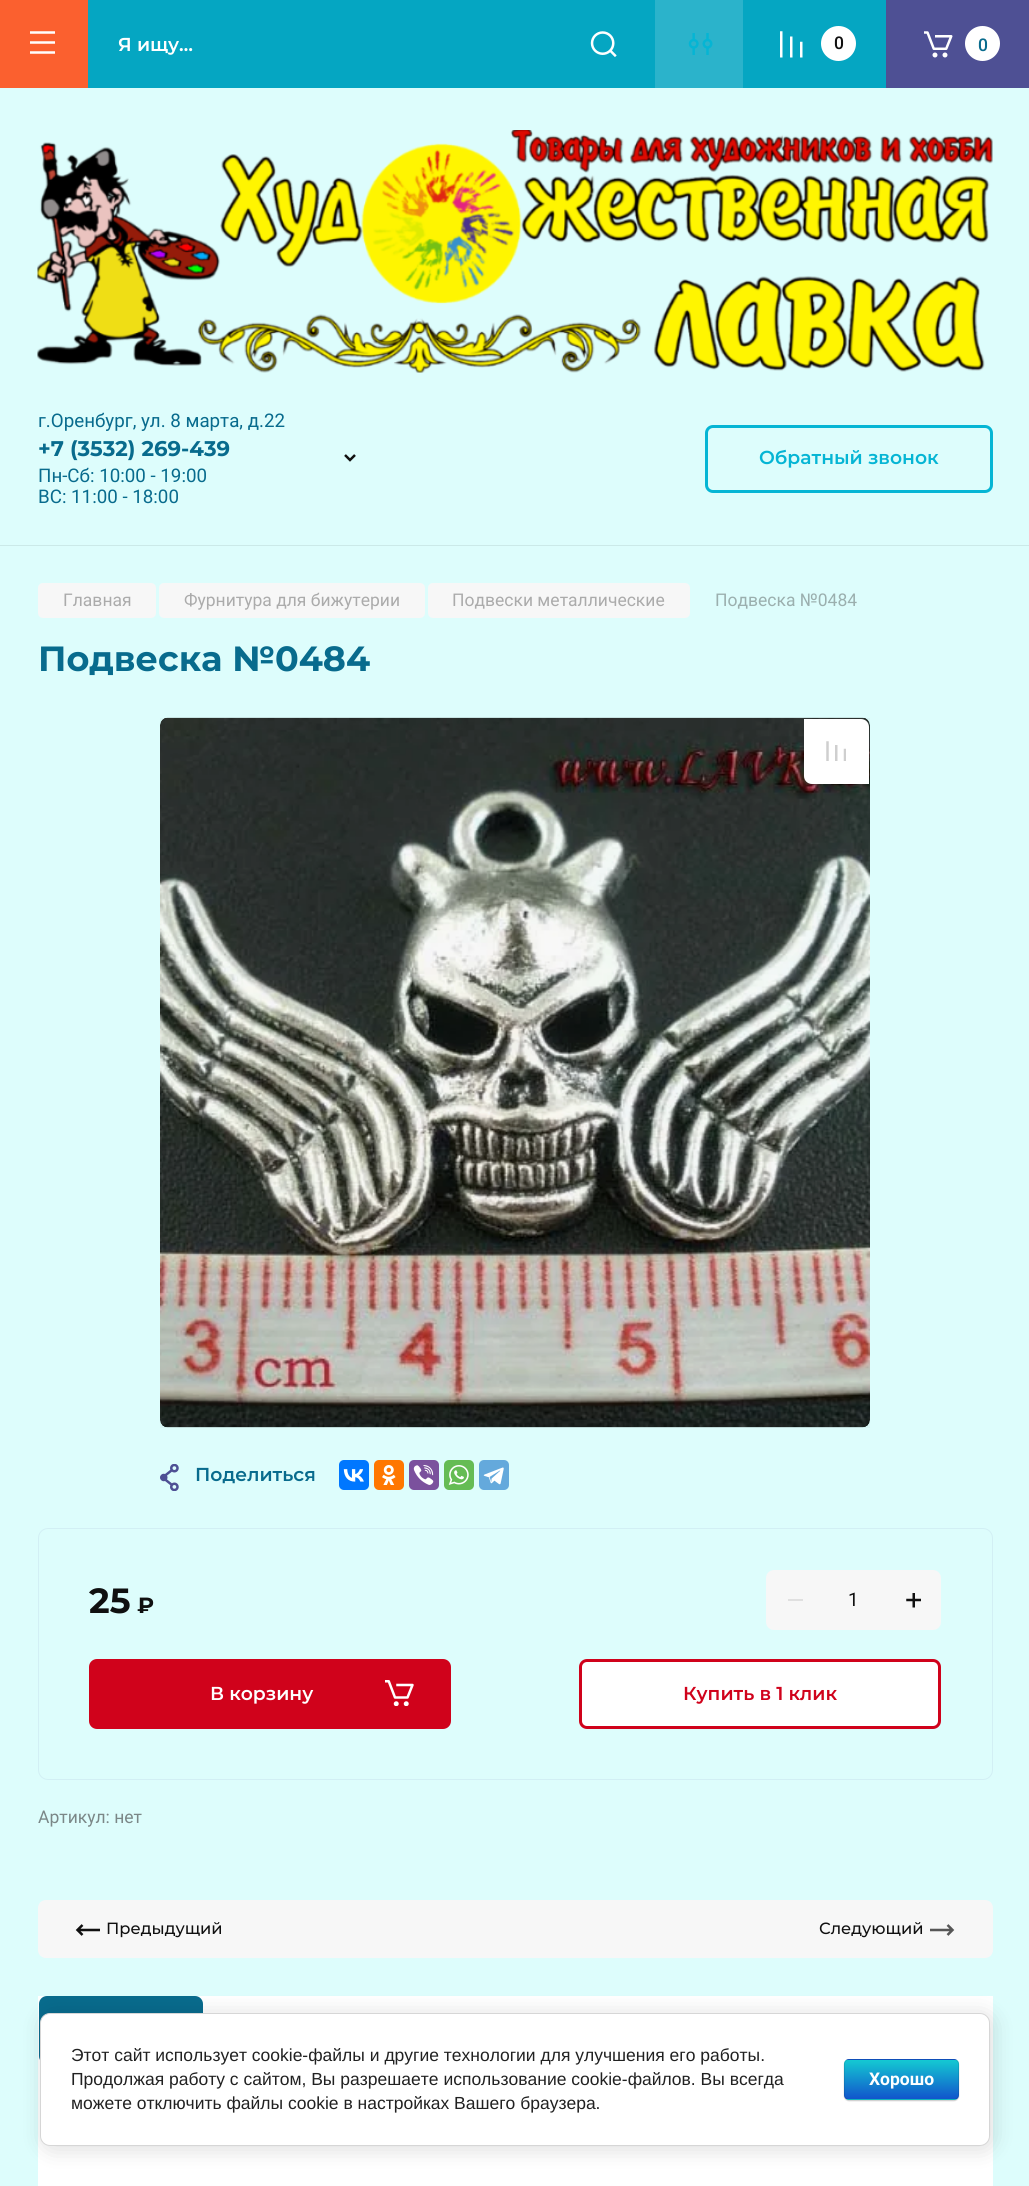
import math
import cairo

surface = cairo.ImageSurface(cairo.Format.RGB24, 1029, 2186)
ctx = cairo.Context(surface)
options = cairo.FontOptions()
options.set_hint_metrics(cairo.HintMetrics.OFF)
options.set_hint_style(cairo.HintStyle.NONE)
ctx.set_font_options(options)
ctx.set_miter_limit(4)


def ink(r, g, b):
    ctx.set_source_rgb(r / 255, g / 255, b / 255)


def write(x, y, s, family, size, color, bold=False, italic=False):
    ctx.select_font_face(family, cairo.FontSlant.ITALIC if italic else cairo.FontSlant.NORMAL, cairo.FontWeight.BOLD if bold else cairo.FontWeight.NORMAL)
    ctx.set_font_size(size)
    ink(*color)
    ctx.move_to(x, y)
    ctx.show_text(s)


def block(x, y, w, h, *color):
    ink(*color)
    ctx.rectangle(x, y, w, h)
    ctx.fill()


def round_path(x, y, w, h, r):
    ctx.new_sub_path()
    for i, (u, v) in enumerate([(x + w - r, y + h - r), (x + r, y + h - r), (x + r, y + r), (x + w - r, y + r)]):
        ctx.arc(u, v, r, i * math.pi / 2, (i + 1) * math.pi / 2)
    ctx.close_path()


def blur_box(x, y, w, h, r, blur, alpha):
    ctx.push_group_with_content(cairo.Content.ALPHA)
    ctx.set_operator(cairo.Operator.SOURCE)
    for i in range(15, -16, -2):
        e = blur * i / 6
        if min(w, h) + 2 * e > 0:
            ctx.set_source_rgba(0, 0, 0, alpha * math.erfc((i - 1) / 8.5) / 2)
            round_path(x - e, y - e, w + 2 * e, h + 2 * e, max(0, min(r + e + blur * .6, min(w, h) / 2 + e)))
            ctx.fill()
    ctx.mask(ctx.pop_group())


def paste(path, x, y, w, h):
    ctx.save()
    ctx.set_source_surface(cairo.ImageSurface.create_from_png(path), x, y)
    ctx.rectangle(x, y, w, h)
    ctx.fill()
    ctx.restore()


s1 = dict(family="Montserrat SemiBold", size=18.75, color=(255, 255, 255))
s2 = dict(family="Roboto Medium", size=17.5, color=(16, 16, 16))
s3 = dict(family="Roboto Medium", size=17.5, color=(8, 107, 141))
s4 = dict(family="Roboto", size=18.75, color=(8, 107, 141))
s5 = dict(family="Montserrat", size=21.25, color=(8, 107, 141), bold=True)
s6 = dict(family="Montserrat SemiBold", size=18.75, color=(5, 181, 212))
s7 = dict(family="Roboto", size=17.5, color=(171, 171, 171))
s8 = dict(family="Roboto", size=17.5, color=(155, 175, 174))
s9 = dict(family="Montserrat", size=35, color=(8, 107, 141), bold=True)
s10 = dict(family="Montserrat SemiBold", size=18.75, color=(8, 107, 141))
s11 = dict(family="Montserrat", size=35, color=(16, 16, 16), bold=True)
s12 = dict(family="Montserrat", size=22, color=(16, 16, 16), bold=True)
s13 = dict(family="Roboto", size=18.75, color=(16, 16, 16))
s14 = dict(family="Montserrat SemiBold", size=18.75, color=(208, 2, 27))
s15 = dict(family="Roboto", size=17.5, color=(123, 135, 135))
s16 = dict(family="Montserrat Medium", size=16.25, color=(16, 16, 16))
s17 = dict(family="Liberation Sans", size=17.5, color=(33, 33, 33))
s18 = dict(family="Roboto", size=17.5, color=(255, 255, 255), bold=True)

ink(221, 253, 252)
ctx.paint()
block(0, 0, 88, 88, 251, 96, 47)
paste("pic1.png", 30, 31, 25, 23)
block(88, 0, 567, 88, 5, 166, 194)
write(118, 51, "Я ищу…", **s1)
paste("pic2.png", 590, 31, 27, 26)
block(655, 0, 88, 88, 43, 179, 203)
paste("pic3.png", 688, 33, 25, 22)
block(743, 0, 143, 88, 5, 166, 194)
paste("pic4.png", 780, 31, 23, 27)
ink(255, 255, 255)
ctx.arc(838.5, 43.5, 17.5, 0, 2 * math.pi)
ctx.fill()
write(834, 49, "0", **s2)
block(886, 0, 143, 88, 78, 80, 148)
paste("pic5.png", 924, 31, 29, 27)
ink(255, 255, 255)
ctx.arc(982.5, 43.5, 17.5, 0, 2 * math.pi)
ctx.fill()
write(978, 51, "0", **s3)
block(0, 545, 1029, 1, 203, 233, 232)
paste("pic6.png", 37, 130, 956, 243)
write(38, 427, "г.Оренбург, ул. 8 марта, д.22", **s4)
write(38, 456, "+7 (3532) 269-439", **s5)
write(38, 482, "Пн-Сб: 10:00 - 19:00", **s4)
write(38, 503, "ВС: 11:00 - 18:00", **s4)
paste("pic7.png", 344, 454, 12, 8)
round_path(706.5, 426.5, 285, 65, 6.5)
ink(5, 181, 212)
ctx.set_line_width(3)
ctx.stroke()
write(759, 464, "Обратный звонок", **s6)
ink(247, 247, 247)
round_path(38, 583, 118, 35, 5)
ctx.fill()
write(63, 606, "Главная", **s7)
ink(247, 247, 247)
round_path(159, 583, 266, 35, 5)
ctx.fill()
write(184, 606, "Фурнитура для бижутерии", **s7)
ink(247, 247, 247)
round_path(428, 583, 262, 35, 5)
ctx.fill()
write(452, 606, "Подвески металлические", **s7)
write(715, 606, "Подвеска №0484", **s8)
write(38, 671, "Подвеска №0484", **s9)
paste("pic8.png", 160, 717, 710, 711)
ctx.set_source_rgba(0, 0, 0, 0.03)
ctx.rectangle(160, 718, 710, 710)
ctx.fill()
ink(255, 255, 255)
ctx.new_path()
ctx.move_to(804, 719)
ctx.line_to(861, 719)
ctx.curve_to(865.5, 719, 869, 722.5, 869, 727)
ctx.line_to(869, 784)
ctx.line_to(812, 784)
ctx.curve_to(807.5, 784, 804, 780.5, 804, 776)
ctx.close_path()
ctx.fill()
paste("pic9.png", 826, 741, 20, 20)
paste("pic10.png", 160, 1464, 19, 27)
write(195, 1481, "Поделиться", **s10)
ink(0, 119, 255)
round_path(339, 1460, 30, 30, 5)
ctx.fill()
paste("pic11.png", 343, 1469, 21, 13)
ink(255, 119, 0)
round_path(374, 1460, 30, 30, 5)
ctx.fill()
paste("pic12.png", 382, 1465, 14, 20)
ink(123, 81, 157)
round_path(409, 1460, 30, 30, 5)
ctx.fill()
paste("pic13.png", 413, 1465, 21, 20)
ink(101, 188, 84)
round_path(444, 1460, 30, 30, 5)
ctx.fill()
paste("pic14.png", 448, 1465, 21, 20)
ink(100, 169, 220)
round_path(479, 1460, 30, 30, 5)
ctx.fill()
paste("pic15.png", 483, 1467, 21, 18)
round_path(38.5, 1528.5, 954, 251, 9.5)
ink(210, 239, 244)
ctx.set_line_width(1)
ctx.stroke()
write(89, 1613, "25", **s11)
write(137, 1613, "₽", **s12)
ink(247, 247, 247)
round_path(766, 1570, 175, 60, 8)
ctx.fill()
block(788, 1599, 15, 2, 224, 224, 224)
write(848, 1606, "1", **s13)
paste("pic16.png", 906, 1593, 15, 15)
ink(208, 2, 27)
round_path(89, 1659, 362, 70, 8)
ctx.fill()
write(210, 1700, "В корзину", **s1)
paste("pic17.png", 385, 1680, 29, 26)
round_path(580.5, 1660.5, 359, 67, 6.5)
ctx.fill_preserve()
ink(208, 2, 27)
ctx.set_line_width(3)
ctx.stroke()
write(683, 1700, "Купить в 1 клик", **s14)
write(38, 1823, "Артикул: нет", **s15)
ink(247, 247, 247)
ctx.new_path()
ctx.move_to(46, 1900)
ctx.line_to(515, 1900)
ctx.line_to(515, 1958)
ctx.line_to(46, 1958)
ctx.curve_to(41.5, 1958, 38, 1954.5, 38, 1950)
ctx.line_to(38, 1908)
ctx.curve_to(38, 1903.5, 41.5, 1900, 46, 1900)
ctx.close_path()
ctx.fill()
paste("pic18.png", 75, 1924, 25, 12)
write(106, 1934, "Предыдущий", **s16)
ink(247, 247, 247)
ctx.new_path()
ctx.move_to(515, 1900)
ctx.line_to(985, 1900)
ctx.curve_to(989.5, 1900, 993, 1903.5, 993, 1908)
ctx.line_to(993, 1950)
ctx.curve_to(993, 1954.5, 989.5, 1958, 985, 1958)
ctx.line_to(515, 1958)
ctx.close_path()
ctx.fill()
write(819, 1934, "Следующий", **s16)
paste("pic19.png", 930, 1924, 25, 12)
block(38, 1996, 955, 190, 255, 255, 255)
round_path(40.5, 1997.5, 161, 65, 6.5)
ink(8, 107, 141)
ctx.stroke()
block(42, 1999, 158, 20, 8, 107, 141)
ink(0, 0, 0)
blur_box(43, 2015, 950, 134, 10, 11, 0.14)
ink(255, 255, 255)
round_path(40.5, 2013.5, 949, 132, 9.5)
ctx.fill_preserve()
ink(214, 214, 214)
ctx.set_line_width(1)
ctx.stroke()
write(71, 2061, "Этот сайт использует cookie-файлы и другие технологии для улучшения его работы.", **s17)
write(71, 2085, "Продолжая работу с сайтом, Вы разрешаете использование cookie-файлов. Вы всегда", **s17)
write(71, 2109, "можете отключить файлы cookie в настройках Вашего браузера.", **s17)
ink(0, 0, 0)
blur_box(844, 2060, 115, 41, 5, 0.5, 0.2)
ctx.save()
round_path(844, 2059, 115, 41, 5)
ctx.clip()
gradient = cairo.LinearGradient(901, 2021, 901, 2060)
gradient.add_color_stop_rgba(0, 0.078, 0.788, 0.824, 1)
gradient.add_color_stop_rgba(1, 0.067, 0.333, 0.8, 1)
ctx.set_source(gradient)
ctx.rectangle(844, 2059, 115, 1)
ctx.fill()
gradient = cairo.LinearGradient(901, 2060, 901, 2099)
gradient.add_color_stop_rgba(0, 0.078, 0.788, 0.824, 1)
gradient.add_color_stop_rgba(1, 0.067, 0.333, 0.8, 1)
ctx.set_source(gradient)
ctx.rectangle(844, 2060, 115, 39)
ctx.fill()
gradient = cairo.LinearGradient(901, 2099, 901, 2138)
gradient.add_color_stop_rgba(0, 0.078, 0.788, 0.824, 1)
gradient.add_color_stop_rgba(1, 0.067, 0.333, 0.8, 1)
ctx.set_source(gradient)
ctx.rectangle(844, 2099, 115, 1)
ctx.fill()
ctx.restore()
round_path(844.5, 2059.5, 114, 40, 4.5)
ctx.set_source_rgba(0, 0, 0, 0.1)
ctx.stroke()
write(869, 2085, "Хорошо", **s18)
surface.write_to_png("screenshot.png")
